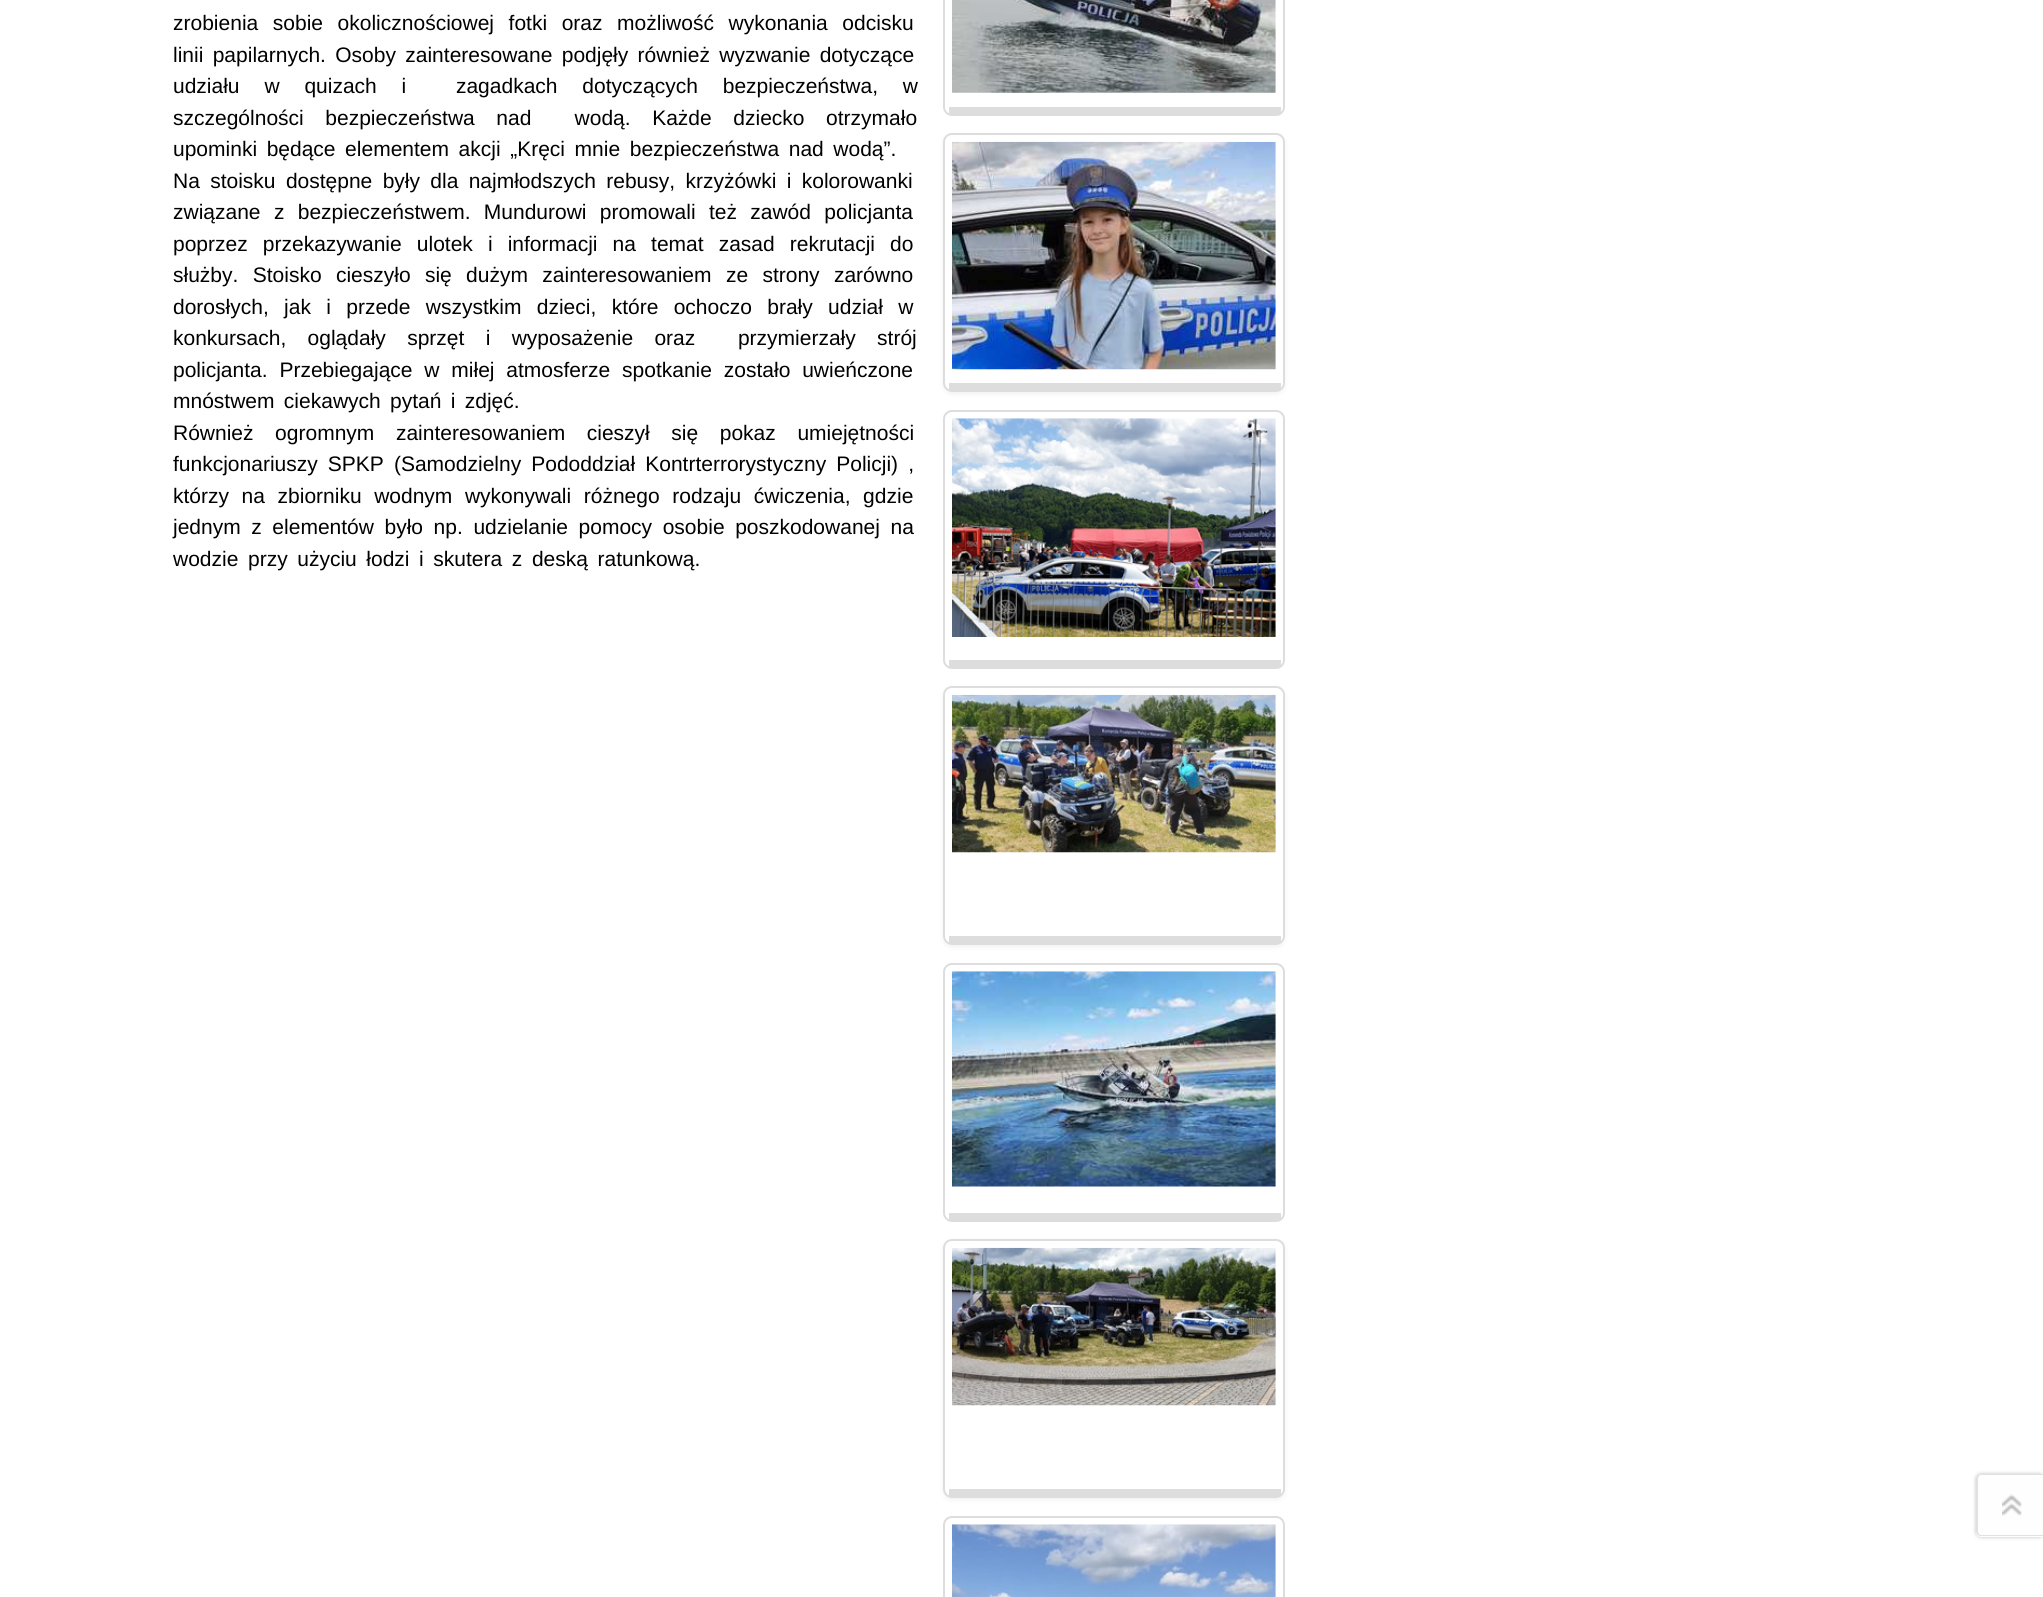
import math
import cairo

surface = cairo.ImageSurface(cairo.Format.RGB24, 2043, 1597)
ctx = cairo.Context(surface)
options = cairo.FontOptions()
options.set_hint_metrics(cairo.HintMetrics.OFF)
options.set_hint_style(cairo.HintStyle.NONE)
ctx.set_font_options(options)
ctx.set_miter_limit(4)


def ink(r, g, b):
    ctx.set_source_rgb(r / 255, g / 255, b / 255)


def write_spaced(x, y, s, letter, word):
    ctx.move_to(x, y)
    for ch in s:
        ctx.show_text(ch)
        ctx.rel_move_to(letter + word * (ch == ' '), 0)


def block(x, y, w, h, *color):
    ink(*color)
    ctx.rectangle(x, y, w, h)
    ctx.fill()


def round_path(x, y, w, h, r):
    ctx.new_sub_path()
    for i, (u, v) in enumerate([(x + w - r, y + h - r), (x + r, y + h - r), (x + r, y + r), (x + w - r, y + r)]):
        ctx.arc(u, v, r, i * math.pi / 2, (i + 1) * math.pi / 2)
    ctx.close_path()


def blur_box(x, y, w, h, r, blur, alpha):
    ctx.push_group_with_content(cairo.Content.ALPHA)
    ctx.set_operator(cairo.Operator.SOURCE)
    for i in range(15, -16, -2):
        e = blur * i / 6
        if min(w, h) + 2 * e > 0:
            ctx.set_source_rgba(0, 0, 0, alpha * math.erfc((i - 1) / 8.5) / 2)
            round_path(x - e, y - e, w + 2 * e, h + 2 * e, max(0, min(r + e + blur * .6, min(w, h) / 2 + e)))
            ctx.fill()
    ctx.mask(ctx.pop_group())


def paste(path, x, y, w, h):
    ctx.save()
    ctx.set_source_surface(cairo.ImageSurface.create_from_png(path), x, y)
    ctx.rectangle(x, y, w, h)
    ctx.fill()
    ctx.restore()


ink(255, 255, 255)
ctx.paint()
ctx.select_font_face("Liberation Sans")
ctx.set_font_size(21)
ink(0, 0, 0)
write_spaced(173, 30, "zrobienia sobie okolicznościowej fotki oraz możliwość wykonania odcisku", 0, 8.75)
write_spaced(173, 62, "linii papilarnych. Osoby zainteresowane podjęły również wyzwanie dotyczące", 0, 3.5)
write_spaced(173, 93, "udziału w quizach i  zagadkach dotyczących bezpieczeństwa, w", 0, 19)
write_spaced(173, 125, "szczególności bezpieczeństwa nad  wodą. Każde dziecko otrzymało", 0, 15.75)
write_spaced(173, 156, "upominki będące elementem akcji „Kręci mnie bezpieczeństwa nad wodą”.", 0, 3.75)
write_spaced(173, 188, "Na stoisku dostępne były dla najmłodszych rebusy, krzyżówki i kolorowanki", 0, 4.5)
write_spaced(173, 219, "związane z bezpieczeństwem. Mundurowi promowali też zawód policjanta", 0, 7.5)
write_spaced(173, 251, "poprzez przekazywanie ulotek i informacji na temat zasad rekrutacji do", 0, 9.25)
write_spaced(173, 282, "służby. Stoisko cieszyło się dużym zainteresowaniem ze strony zarówno", 0, 8.5)
write_spaced(173, 314, "dorosłych, jak i przede wszystkim dzieci, które ochoczo brały udział w", 0, 9.5)
write_spaced(173, 345, "konkursach, oglądały sprzęt i wyposażenie oraz  przymierzały strój", 0, 15.5)
write_spaced(173, 377, "policjanta. Przebiegające w miłej atmosferze spotkanie zostało uwieńczone", 0, 6)
write_spaced(173, 408, "mnóstwem ciekawych pytań i zdjęć.", 0, 3.5)
write_spaced(173, 440, "Również ogromnym zainteresowaniem cieszył się pokaz umiejętności", 0, 15.75)
write_spaced(173, 471, "funkcjonariuszy SPKP (Samodzielny Pododdział Kontrterrorystyczny Policji) ,", 0, 4.25)
write_spaced(173, 503, "którzy na zbiorniku wodnym wykonywali różnego rodzaju ćwiczenia, gdzie", 0, 6.75)
write_spaced(173, 534, "jednym z elementów było np. udzielanie pomocy osobie poszkodowanej na", 0, 4.75)
write_spaced(173, 566, "wodzie przy użyciu łodzi i skutera z deską ratunkową.", 0, 3.75)
round_path(944, -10, 340, 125, 8)
ink(221, 221, 221)
ctx.stroke()
block(949, 107, 332, 7, 221, 221, 221)
paste("pic1.png", 952, 0, 324, 93)
ctx.save()
ctx.set_fill_rule(cairo.FillRule.EVEN_ODD)
ctx.new_path()
ctx.move_to(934, 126)
ctx.line_to(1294, 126)
ctx.line_to(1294, 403)
ctx.line_to(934, 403)
ctx.close_path()
ctx.move_to(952, 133)
ctx.line_to(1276, 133)
ctx.curve_to(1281, 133, 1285, 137, 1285, 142)
ctx.line_to(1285, 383)
ctx.curve_to(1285, 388, 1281, 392, 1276, 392)
ctx.line_to(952, 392)
ctx.curve_to(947, 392, 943, 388, 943, 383)
ctx.line_to(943, 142)
ctx.curve_to(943, 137, 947, 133, 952, 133)
ctx.close_path()
ctx.clip()
ink(0, 0, 0)
blur_box(943, 135, 342, 259, 9, 2.5, 0.06)
ctx.restore()
round_path(944, 134, 340, 257, 8)
ctx.stroke()
block(949, 383, 332, 7, 221, 221, 221)
paste("pic2.png", 952, 141, 324, 229)
round_path(944, 411, 340, 257, 8)
ctx.stroke()
block(949, 660, 332, 7, 221, 221, 221)
paste("pic3.png", 952, 418, 324, 219)
ctx.save()
ctx.set_fill_rule(cairo.FillRule.EVEN_ODD)
ctx.new_path()
ctx.move_to(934, 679)
ctx.line_to(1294, 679)
ctx.line_to(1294, 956)
ctx.line_to(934, 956)
ctx.close_path()
ctx.move_to(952, 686)
ctx.line_to(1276, 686)
ctx.curve_to(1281, 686, 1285, 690, 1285, 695)
ctx.line_to(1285, 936)
ctx.curve_to(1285, 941, 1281, 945, 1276, 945)
ctx.line_to(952, 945)
ctx.curve_to(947, 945, 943, 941, 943, 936)
ctx.line_to(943, 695)
ctx.curve_to(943, 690, 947, 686, 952, 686)
ctx.close_path()
ctx.clip()
ink(0, 0, 0)
blur_box(943, 688, 342, 259, 9, 2.5, 0.06)
ctx.restore()
round_path(944, 687, 340, 257, 8)
ctx.stroke()
block(949, 936, 332, 7, 221, 221, 221)
paste("pic4.png", 952, 694, 324, 159)
round_path(944, 964, 340, 257, 8)
ctx.stroke()
block(949, 1213, 332, 7, 221, 221, 221)
paste("pic5.png", 952, 971, 324, 216)
ctx.save()
ctx.set_fill_rule(cairo.FillRule.EVEN_ODD)
ctx.new_path()
ctx.move_to(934, 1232)
ctx.line_to(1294, 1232)
ctx.line_to(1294, 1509)
ctx.line_to(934, 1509)
ctx.close_path()
ctx.move_to(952, 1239)
ctx.line_to(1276, 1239)
ctx.curve_to(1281, 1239, 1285, 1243, 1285, 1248)
ctx.line_to(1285, 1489)
ctx.curve_to(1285, 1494, 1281, 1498, 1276, 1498)
ctx.line_to(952, 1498)
ctx.curve_to(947, 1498, 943, 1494, 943, 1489)
ctx.line_to(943, 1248)
ctx.curve_to(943, 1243, 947, 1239, 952, 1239)
ctx.close_path()
ctx.clip()
ink(0, 0, 0)
blur_box(943, 1241, 342, 259, 9, 2.5, 0.06)
ctx.restore()
round_path(944, 1240, 340, 257, 8)
ctx.stroke()
block(949, 1489, 332, 7, 221, 221, 221)
paste("pic6.png", 952, 1247, 324, 159)
round_path(944, 1517, 340, 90, 8)
ctx.stroke()
paste("pic7.png", 952, 1524, 324, 73)
ink(0, 0, 0)
blur_box(1976, 1474, 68, 63, 5, 2, 0.25)
ink(254, 254, 254)
ctx.new_path()
ctx.move_to(1981, 1474)
ctx.line_to(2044, 1474)
ctx.line_to(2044, 1537)
ctx.line_to(1981, 1537)
ctx.curve_to(1978, 1537, 1976, 1535, 1976, 1532)
ctx.line_to(1976, 1479)
ctx.curve_to(1976, 1476, 1978, 1474, 1981, 1474)
ctx.close_path()
ctx.fill()
ink(225, 225, 225)
ctx.set_fill_rule(cairo.FillRule.EVEN_ODD)
ctx.new_path()
ctx.move_to(1981, 1474)
ctx.line_to(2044, 1474)
ctx.line_to(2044, 1536)
ctx.line_to(1981, 1536)
ctx.curve_to(1978, 1536, 1976, 1534, 1976, 1531)
ctx.line_to(1976, 1479)
ctx.curve_to(1976, 1476, 1978, 1474, 1981, 1474)
ctx.close_path()
ctx.move_to(1981, 1475)
ctx.line_to(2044, 1475)
ctx.line_to(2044, 1535)
ctx.line_to(1981, 1535)
ctx.curve_to(1979, 1535, 1978, 1533, 1978, 1531)
ctx.line_to(1978, 1479)
ctx.curve_to(1978, 1477, 1979, 1475, 1981, 1475)
ctx.close_path()
ctx.fill()
paste("pic8.png", 2002, 1494, 20, 22)
surface.write_to_png("screenshot.png")
